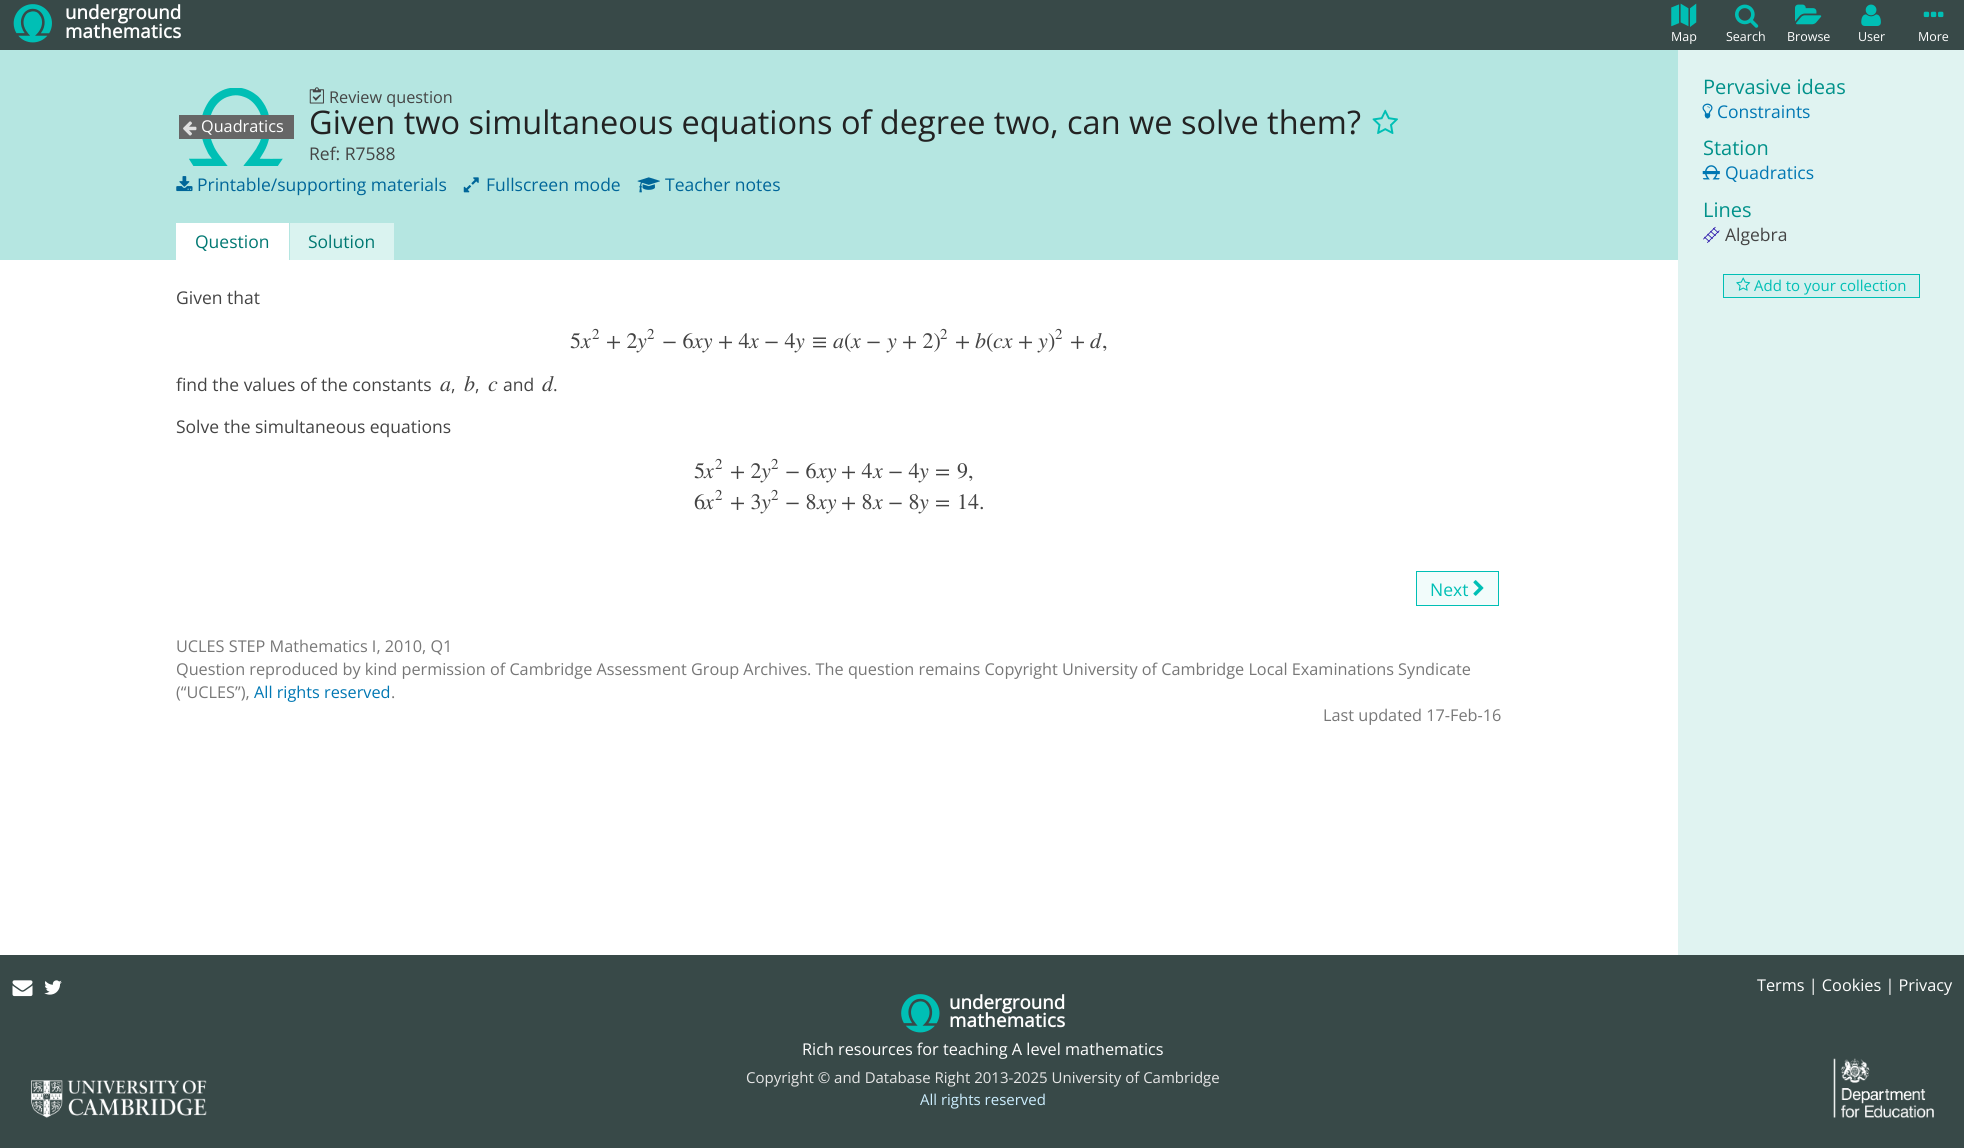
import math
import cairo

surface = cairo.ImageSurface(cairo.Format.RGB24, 1964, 1148)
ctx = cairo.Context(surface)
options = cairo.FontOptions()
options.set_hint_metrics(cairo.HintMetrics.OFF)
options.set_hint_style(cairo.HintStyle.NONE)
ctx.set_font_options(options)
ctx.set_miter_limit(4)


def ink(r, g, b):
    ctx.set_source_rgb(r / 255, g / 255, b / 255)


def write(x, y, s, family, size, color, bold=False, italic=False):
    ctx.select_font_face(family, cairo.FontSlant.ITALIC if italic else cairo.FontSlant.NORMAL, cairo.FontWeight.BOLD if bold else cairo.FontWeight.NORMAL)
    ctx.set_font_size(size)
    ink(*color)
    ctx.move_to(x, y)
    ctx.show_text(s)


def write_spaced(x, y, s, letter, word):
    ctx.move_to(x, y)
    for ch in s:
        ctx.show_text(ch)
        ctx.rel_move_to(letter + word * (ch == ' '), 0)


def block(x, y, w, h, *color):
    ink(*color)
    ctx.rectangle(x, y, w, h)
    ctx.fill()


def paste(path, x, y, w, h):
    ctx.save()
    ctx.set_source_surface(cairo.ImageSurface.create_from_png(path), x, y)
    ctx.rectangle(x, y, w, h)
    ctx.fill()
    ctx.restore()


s1 = dict(family="Open Sans", size=18.75, color=(255, 255, 255), bold=True)
s2 = dict(family="Open Sans", size=12.5, color=(255, 255, 255))
s3 = dict(family="Open Sans", size=16.25, color=(255, 255, 255))
s4 = dict(family="Open Sans", size=16.25, color=(68, 68, 68))
s5 = dict(family="Open Sans", size=32.5, color=(34, 34, 34))
s6 = dict(family="Open Sans", size=17.5, color=(68, 68, 68))
s7 = dict(family="Open Sans", size=17.5, color=(0, 102, 153))
s8 = dict(family="Open Sans", size=17.5, color=(0, 120, 114))
s9 = dict(family="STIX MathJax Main", size=22, color=(68, 68, 68))
s10 = dict(family="STIX MathJax Main", size=15, color=(68, 68, 68))
s11 = dict(family="STIX MathJax Main", size=22, color=(68, 68, 68), italic=True)
s12 = dict(family="Open Sans", size=17.5, color=(0, 191, 181))
s13 = dict(family="Open Sans", size=16.25, color=(119, 119, 119))
s14 = dict(family="Open Sans", size=16.25, color=(0, 119, 179))
s15 = dict(family="Open Sans", size=20, color=(0, 145, 138))
s16 = dict(family="Open Sans", size=17.5, color=(0, 119, 179))
s17 = dict(family="Open Sans", size=15, color=(0, 191, 181))
s18 = dict(family="Open Sans", size=15, color=(230, 230, 230))
s19 = dict(family="Open Sans", size=15, color=(204, 238, 255))

ink(255, 255, 255)
ctx.paint()
block(0, 0, 1964, 50, 56, 73, 72)
paste("pic1.png", 13, 4, 39, 39)
write(65, 19, "underground", **s1)
write_spaced(65, 38, "mathematics", 0.25, 0)
paste("pic2.png", 1671, 3, 26, 24)
write(1671, 41, "Map", **s2)
paste("pic3.png", 1735, 4, 24, 24)
write(1726, 41, "Search", **s2)
paste("pic4.png", 1795, 4, 27, 21)
write(1787, 41, "Browse", **s2)
paste("pic5.png", 1861, 4, 20, 22)
write(1858, 41, "User", **s2)
paste("pic6.png", 1923, 11, 21, 7)
write(1918, 41, "More", **s2)
block(0, 50, 1678, 210, 181, 230, 225)
paste("pic7.png", 189, 88, 94, 78)
block(179, 115, 115, 24, 102, 102, 102)
paste("pic8.png", 183, 121, 14, 15)
write(201, 132, "Quadratics", **s3)
paste("pic9.png", 309, 87, 15, 17)
write(329, 103, "Review question", **s4)
write(309, 134, "Given two simultaneous equations of degree two, can we solve them?", **s5)
paste("pic10.png", 1372, 109, 26, 25)
write(309, 160, "Ref: R7588", **s6)
paste("pic11.png", 176, 176, 17, 16)
write(197, 191, "Printable/supporting materials", **s7)
paste("pic12.png", 463, 177, 16, 16)
write(486, 191, "Fullscreen mode", **s7)
paste("pic13.png", 637, 177, 23, 16)
write(665, 191, "Teacher notes", **s7)
block(176, 223, 113, 37, 255, 255, 255)
write(195, 248, "Question", **s8)
block(290, 223, 104, 37, 218, 243, 240)
write(308, 248, "Solution", **s8)
write(176, 304, "Given that", **s6)
write(570, 348, "5", **s9)
write(592, 339, "2", **s10)
write(581, 348, "x", **s11)
write(606, 348, "+ 2", **s9)
write(647, 339, "2", **s10)
write(637, 348, "y", **s11)
write(662, 348, "− 6", **s9)
write(693, 348, "xy", **s11)
write(718, 348, "+ 4", **s9)
write(749, 348, "x", **s11)
write(764, 348, "− 4", **s9)
write(795, 348, "y", **s11)
write(812, 348, "≡", **s9)
write(833, 348, "a", **s11)
write(844, 348, "(", **s9)
write(851, 348, "x", **s11)
write(866, 348, "−", **s9)
write(887, 348, "y", **s11)
write(902, 348, "+ 2)", **s9)
write(940, 339, "2", **s10)
write(955, 348, "+", **s9)
write(975, 348, "b", **s11)
write(986, 348, "(", **s9)
write(993, 348, "cx", **s11)
write(1018, 348, "+", **s9)
write(1038, 348, "y", **s11)
write(1048, 348, ")", **s9)
write(1055, 339, "2", **s10)
write(1070, 348, "+", **s9)
write(1090, 348, "d", **s11)
write(1102, 348, ",", **s9)
write(176, 391, "find the values of the constants", **s6)
write(440, 391, "a", **s11)
write(451, 391, ",", **s6)
write(464, 391, "b", **s11)
write(475, 391, ",", **s6)
write(488, 391, "c", **s11)
write(503, 391, "and", **s6)
write(542, 391, "d", **s11)
write(553, 391, ".", **s6)
write(176, 433, "Solve the simultaneous equations", **s6)
write(694, 478, "5", **s9)
write(715, 469, "2", **s10)
write(704, 478, "x", **s11)
write(730, 478, "+ 2", **s9)
write(771, 469, "2", **s10)
write(761, 478, "y", **s11)
write(785, 478, "− 6", **s9)
write(817, 478, "xy", **s11)
write(841, 478, "+ 4", **s9)
write(873, 478, "x", **s11)
write(888, 478, "− 4", **s9)
write(919, 478, "y", **s11)
write(694, 509, "6", **s9)
write(715, 500, "2", **s10)
write(704, 509, "x", **s11)
write(730, 509, "+ 3", **s9)
write(771, 500, "2", **s10)
write(761, 509, "y", **s11)
write(785, 509, "− 8", **s9)
write(817, 509, "xy", **s11)
write(841, 509, "+ 8", **s9)
write(873, 509, "x", **s11)
write(888, 509, "− 8", **s9)
write(919, 509, "y", **s11)
write(935, 478, "=", **s9)
write(957, 478, "9,", **s9)
write(935, 509, "=", **s9)
write(957, 509, "14.", **s9)
ink(242, 252, 251)
ctx.rectangle(1416.5, 571.5, 82, 34)
ctx.fill_preserve()
ink(0, 191, 181)
ctx.set_line_width(1)
ctx.stroke()
write(1430, 596, "Next", **s12)
paste("pic14.png", 1473, 580, 11, 16)
write(176, 652, "UCLES STEP Mathematics I, 2010, Q1", **s13)
write(176, 675, "Question reproduced by kind permission of Cambridge Assessment Group Archives. The question remains Copyright University of Cambridge Local Examinations Syndicate", **s13)
write(176, 698, "(“UCLES”),", **s13)
write(254, 698, "All rights reserved", **s14)
write(391, 698, ".", **s13)
write(1323, 721, "Last updated 17-Feb-16", **s13)
block(1678, 50, 286, 905, 224, 243, 241)
write(1703, 94, "Pervasive ideas", **s15)
paste("pic15.png", 1702, 103, 11, 16)
write(1717, 118, "Constraints", **s16)
write(1703, 155, "Station", **s15)
paste("pic16.png", 1702, 165, 18, 15)
write(1725, 179, "Quadratics", **s16)
write(1703, 217, "Lines", **s15)
paste("pic17.png", 1703, 226, 17, 17)
write(1725, 241, "Algebra", **s6)
ink(213, 240, 238)
ctx.rectangle(1723.5, 274.5, 196, 23)
ctx.fill_preserve()
ink(0, 191, 181)
ctx.stroke()
paste("pic18.png", 1736, 277, 15, 14)
write(1754, 291, "Add to your collection", **s17)
block(0, 955, 1964, 193, 56, 73, 72)
paste("pic19.png", 12, 980, 21, 17)
paste("pic20.png", 44, 980, 18, 15)
write(1757, 991, "Terms | Cookies | Privacy", **s3)
paste("pic21.png", 901, 994, 39, 39)
write(949, 1009, "underground", **s1)
write_spaced(949, 1027, "mathematics", 0.25, 0)
write(802, 1055, "Rich resources for teaching A level mathematics", **s3)
write(746, 1083, "Copyright © and Database Right 2013-2025 University of Cambridge", **s18)
write(920, 1105, "All rights reserved", **s19)
paste("pic22.png", 31, 1080, 176, 38)
paste("pic23.png", 1833, 1058, 101, 60)
surface.write_to_png("screenshot.png")
